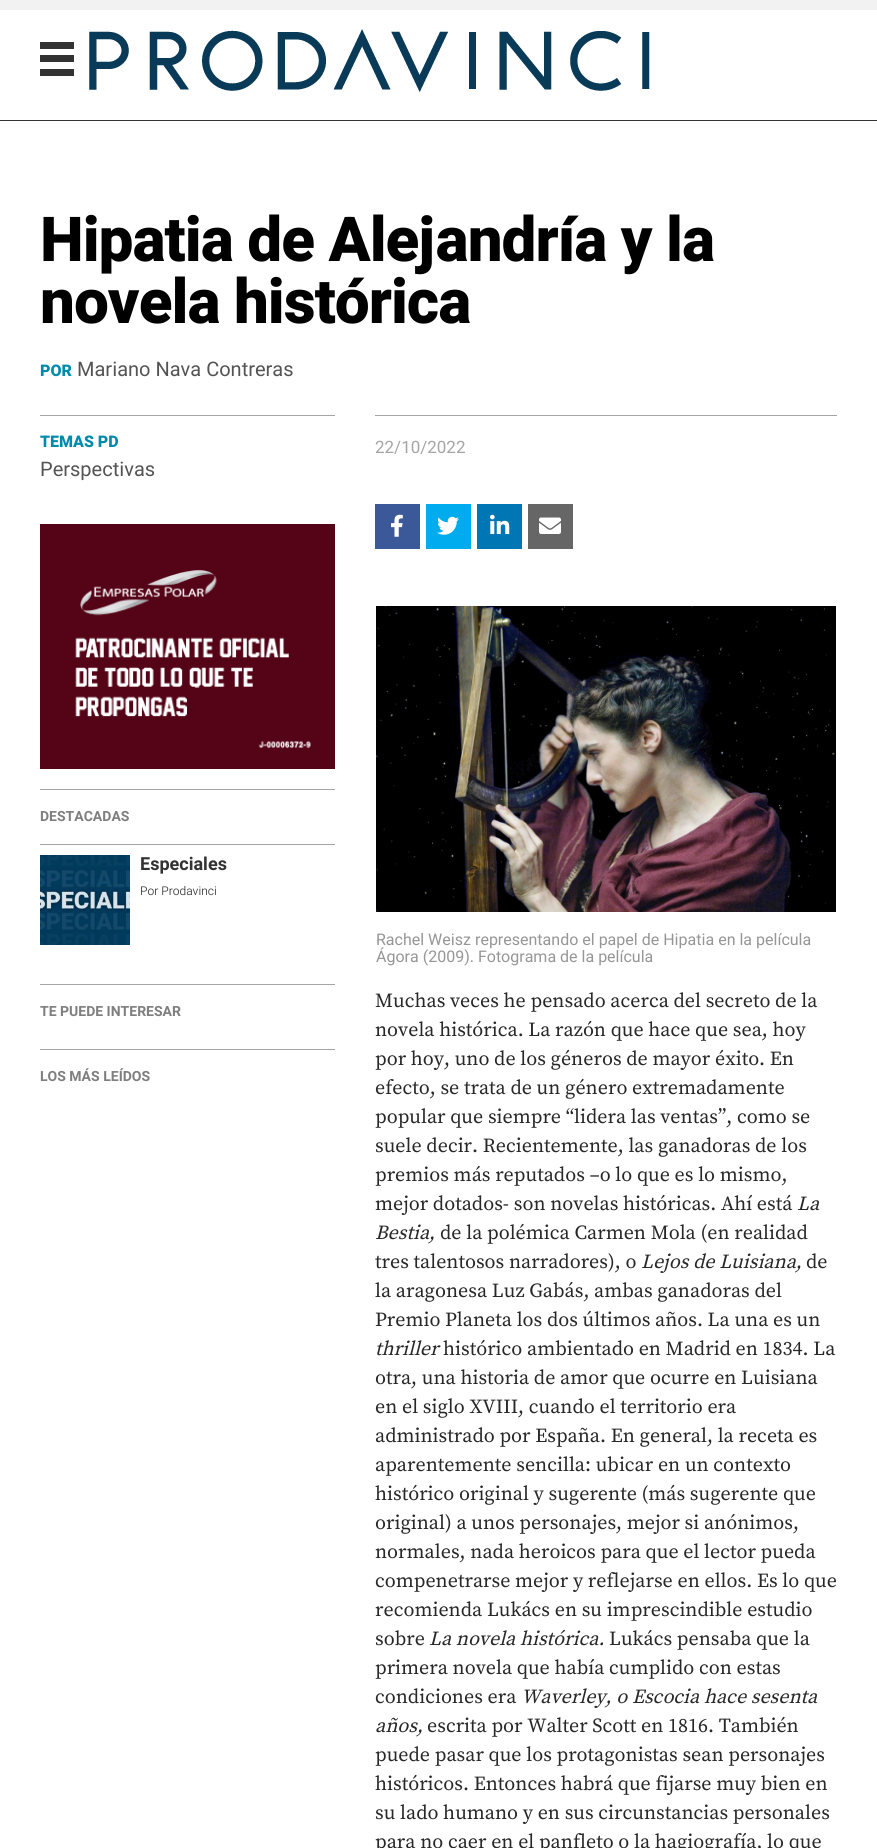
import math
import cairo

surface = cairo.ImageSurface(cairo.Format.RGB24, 877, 1848)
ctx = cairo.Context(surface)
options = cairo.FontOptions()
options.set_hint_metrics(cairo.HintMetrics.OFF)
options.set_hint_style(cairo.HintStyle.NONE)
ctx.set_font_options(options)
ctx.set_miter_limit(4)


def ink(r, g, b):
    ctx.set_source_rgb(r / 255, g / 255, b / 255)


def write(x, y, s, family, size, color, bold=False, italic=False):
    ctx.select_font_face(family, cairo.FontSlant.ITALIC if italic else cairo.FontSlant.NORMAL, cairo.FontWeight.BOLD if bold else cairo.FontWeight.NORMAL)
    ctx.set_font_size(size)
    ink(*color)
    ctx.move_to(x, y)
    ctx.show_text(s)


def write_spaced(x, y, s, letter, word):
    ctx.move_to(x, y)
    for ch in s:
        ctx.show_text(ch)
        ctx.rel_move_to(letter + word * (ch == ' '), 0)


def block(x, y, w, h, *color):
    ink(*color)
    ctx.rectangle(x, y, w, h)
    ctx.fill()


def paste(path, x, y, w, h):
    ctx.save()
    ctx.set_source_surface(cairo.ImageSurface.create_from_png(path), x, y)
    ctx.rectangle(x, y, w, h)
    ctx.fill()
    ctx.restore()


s1 = dict(family="Heebo ExtraBold", size=16, color=(0, 138, 171))
s2 = dict(family="Heebo", size=20, color=(84, 84, 84))
s3 = dict(family="Heebo", size=14, color=(127, 127, 127), bold=True)
s4 = dict(family="Heebo", size=18, color=(51, 51, 51), bold=True)
s5 = dict(family="Heebo Light", size=12, color=(51, 51, 51))
s6 = dict(family="Heebo", size=17, color=(165, 165, 165))
s7 = dict(family="Heebo", size=16, color=(150, 150, 150))
s8 = dict(family="Source Serif Pro", size=20, color=(40, 40, 40))
s9 = dict(family="Source Serif Pro", size=20, color=(40, 40, 40), italic=True)

ink(255, 255, 255)
ctx.paint()
block(0, 0, 877, 10, 242, 242, 242)
block(0, 120, 877, 1, 51, 51, 51)
block(40, 42, 34, 7, 51, 51, 51)
block(40, 55, 34, 7, 51, 51, 51)
block(40, 69, 34, 7, 51, 51, 51)
paste("pic1.png", 89, 29, 561, 63)
ctx.select_font_face("Heebo ExtraBold")
ctx.set_font_size(62)
ink(0, 0, 0)
write_spaced(40, 261, "Hipatia de Alejandría y la", -1, 0)
write_spaced(40, 323, "novela histórica", -1, 0)
write(40, 376, "POR", **s1)
write(77, 376, "Mariano Nava Contreras", **s2)
block(40, 415, 295, 1, 165, 165, 165)
write(40, 447, "TEMAS PD", **s1)
write(40, 476, "Perspectivas", **s2)
paste("pic2.png", 40, 524, 295, 245)
block(40, 789, 295, 1, 165, 165, 165)
write(40, 821, "DESTACADAS", **s3)
block(40, 844, 295, 1, 165, 165, 165)
paste("pic3.png", 40, 855, 90, 90)
write(140, 870, "Especiales", **s4)
write(140, 895, "Por Prodavinci", **s5)
block(40, 984, 295, 1, 165, 165, 165)
write(40, 1016, "TE PUEDE INTERESAR", **s3)
block(40, 1049, 295, 1, 165, 165, 165)
write(40, 1081, "LOS MÁS LEÍDOS", **s3)
block(375, 415, 462, 1, 165, 165, 165)
write(375, 453, "22/10/2022", **s6)
block(375, 504, 45, 45, 59, 89, 152)
paste("pic4.png", 391, 514, 12, 23)
block(426, 504, 45, 45, 0, 172, 237)
paste("pic5.png", 437, 516, 22, 19)
block(477, 504, 45, 45, 0, 119, 181)
paste("pic6.png", 490, 514, 20, 20)
block(528, 504, 45, 45, 102, 102, 102)
paste("pic7.png", 539, 517, 22, 17)
paste("pic8.png", 376, 606, 460, 306)
write(376, 945, "Rachel Weisz representando el papel de Hipatia en la película", **s7)
write(376, 962, "Ágora (2009). Fotograma de la película", **s7)
write(375, 1007, "Muchas veces he pensado acerca del secreto de la", **s8)
write(375, 1036, "novela histórica. La razón que hace que sea, hoy", **s8)
write(375, 1065, "por hoy, uno de los géneros de mayor éxito. En", **s8)
write(375, 1094, "efecto, se trata de un género extremadamente", **s8)
write(375, 1123, "popular que siempre “lidera las ventas”, como se", **s8)
write(375, 1152, "suele decir. Recientemente, las ganadoras de los", **s8)
write(375, 1181, "premios más reputados –o lo que es lo mismo,", **s8)
write(375, 1210, "mejor dotados- son novelas históricas. Ahí está", **s8)
write(797, 1210, "La", **s9)
write(375, 1239, "Bestia,", **s9)
write(440, 1239, "de la polémica Carmen Mola (en realidad", **s8)
write(375, 1268, "tres talentosos narradores), o", **s8)
write(641, 1268, "Lejos de Luisiana,", **s9)
write(806, 1268, "de", **s8)
write(375, 1297, "la aragonesa Luz Gabás, ambas ganadoras del", **s8)
write(375, 1326, "Premio Planeta los dos últimos años. La una es un", **s8)
write(375, 1355, "thriller", **s9)
write(443, 1355, "histórico ambientado en Madrid en 1834. La", **s8)
write(375, 1384, "otra, una historia de amor que ocurre en Luisiana", **s8)
write(375, 1413, "en el siglo XVIII, cuando el territorio era", **s8)
write(375, 1442, "administrado por España. En general, la receta es", **s8)
write(375, 1471, "aparentemente sencilla: ubicar en un contexto", **s8)
write(375, 1500, "histórico original y sugerente (más sugerente que", **s8)
write(375, 1529, "original) a unos personajes, mejor si anónimos,", **s8)
write(375, 1558, "normales, nada heroicos para que el lector pueda", **s8)
write(375, 1587, "compenetrarse mejor y reflejarse en ellos. Es lo que", **s8)
write(375, 1616, "recomienda Lukács en su imprescindible estudio", **s8)
write(375, 1645, "sobre", **s8)
write(429, 1645, "La novela histórica.", **s9)
write(609, 1645, "Lukács pensaba que la", **s8)
write(375, 1674, "primera novela que había cumplido con estas", **s8)
write(375, 1703, "condiciones era", **s8)
write(521, 1703, "Waverley, o Escocia hace sesenta", **s9)
write(375, 1732, "años,", **s9)
write(427, 1732, "escrita por Walter Scott en 1816. También", **s8)
write(375, 1761, "puede pasar que los protagonistas sean personajes", **s8)
write(375, 1790, "históricos. Entonces habrá que fijarse muy bien en", **s8)
write(375, 1819, "su lado humano y en sus circunstancias personales", **s8)
write(375, 1848, "para no caer en el panfleto o la hagiografía, lo que", **s8)
surface.write_to_png("screenshot.png")
